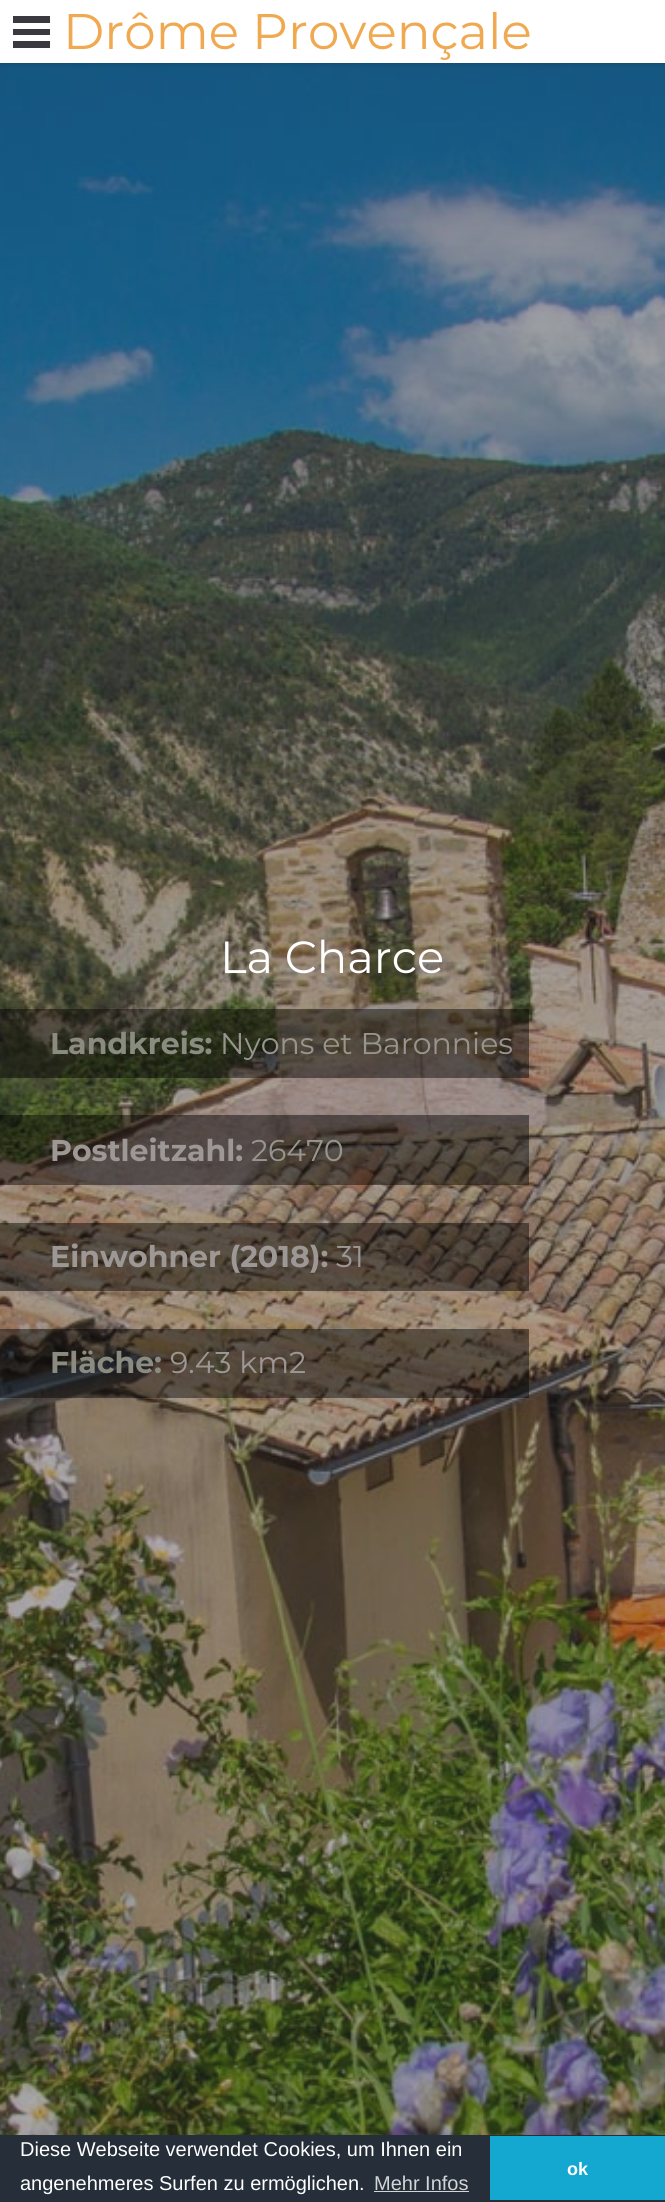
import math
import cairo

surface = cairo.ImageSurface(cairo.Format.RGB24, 665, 2202)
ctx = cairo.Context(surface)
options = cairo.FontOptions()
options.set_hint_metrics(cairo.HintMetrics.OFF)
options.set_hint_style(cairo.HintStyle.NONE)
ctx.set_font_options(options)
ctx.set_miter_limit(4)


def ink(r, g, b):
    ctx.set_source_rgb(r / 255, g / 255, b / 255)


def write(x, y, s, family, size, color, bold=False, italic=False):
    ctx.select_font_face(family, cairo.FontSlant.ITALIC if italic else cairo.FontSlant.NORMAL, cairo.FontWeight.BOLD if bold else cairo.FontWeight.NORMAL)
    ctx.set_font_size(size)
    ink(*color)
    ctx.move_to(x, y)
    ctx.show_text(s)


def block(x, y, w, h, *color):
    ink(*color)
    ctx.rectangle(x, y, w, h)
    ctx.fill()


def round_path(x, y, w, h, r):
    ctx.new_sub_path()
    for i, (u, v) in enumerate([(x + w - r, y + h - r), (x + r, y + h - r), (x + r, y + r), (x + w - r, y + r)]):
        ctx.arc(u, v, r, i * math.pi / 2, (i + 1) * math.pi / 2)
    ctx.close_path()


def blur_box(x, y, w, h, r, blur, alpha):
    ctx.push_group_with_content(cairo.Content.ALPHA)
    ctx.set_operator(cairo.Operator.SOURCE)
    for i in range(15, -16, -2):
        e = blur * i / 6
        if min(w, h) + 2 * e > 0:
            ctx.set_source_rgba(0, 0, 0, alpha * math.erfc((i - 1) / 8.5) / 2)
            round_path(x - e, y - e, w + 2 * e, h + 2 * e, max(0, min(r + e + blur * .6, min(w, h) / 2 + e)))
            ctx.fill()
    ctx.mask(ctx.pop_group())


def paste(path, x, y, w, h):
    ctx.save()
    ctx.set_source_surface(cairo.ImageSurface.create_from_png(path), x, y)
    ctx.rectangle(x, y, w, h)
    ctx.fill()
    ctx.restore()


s1 = dict(family="Montserrat", size=50, color=(240, 169, 81))
s2 = dict(family="Montserrat", size=45, color=(255, 255, 255))
s3 = dict(family="Montserrat", size=30, color=(138, 140, 130), bold=True)
s4 = dict(family="Montserrat", size=30, color=(152, 149, 142))
s5 = dict(family="Montserrat", size=30, color=(157, 152, 150), bold=True)
s6 = dict(family="Montserrat", size=30, color=(157, 152, 150))
s7 = dict(family="Liberation Sans", size=20, color=(255, 255, 255))
s8 = dict(family="Liberation Sans", size=20, color=(211, 213, 215))
s9 = dict(family="Liberation Sans", size=18, color=(255, 255, 255), bold=True)

ink(255, 255, 255)
ctx.paint()
paste("pic1.png", 0, 63, 665, 2072)
ink(0, 0, 0)
blur_box(0, 1, 665, 63, 0, 2.5, 0.15)
block(0, 0, 665, 63, 255, 255, 255)
block(13, 29, 37, 6, 59, 57, 64)
block(13, 16, 37, 7, 59, 57, 64)
block(13, 41, 37, 7, 59, 57, 64)
write(63, 49, "Drôme Provençale", **s1)
write(220, 973, "La Charce", **s2)
ctx.set_source_rgba(0, 0, 0, 0.45)
ctx.rectangle(0, 1009, 529, 69)
ctx.fill()
write(50, 1054, "Landkreis:", **s3)
write(220, 1054, "Nyons et Baronnies", **s4)
ctx.set_source_rgba(0, 0, 0, 0.45)
ctx.rectangle(0, 1115, 529, 70)
ctx.fill()
write(50, 1161, "Postleitzahl:", **s5)
write(251, 1161, "26470", **s4)
ctx.set_source_rgba(0, 0, 0, 0.45)
ctx.rectangle(0, 1223, 529, 68)
ctx.fill()
write(50, 1267, "Einwohner (2018):", **s5)
write(336, 1267, "31", **s6)
ctx.set_source_rgba(0, 0, 0, 0.45)
ctx.rectangle(0, 1329, 529, 69)
ctx.fill()
write(50, 1373, "Fläche:", **s3)
write(170, 1373, "9.43 km2", **s6)
block(0, 2135, 665, 67, 37, 46, 57)
write(20, 2156, "Diese Webseite verwendet Cookies, um Ihnen ein", **s7)
write(20, 2190, "angenehmeres Surfen zu ermöglichen.", **s7)
write(374, 2190, "Mehr Infos", **s8)
block(374, 2191, 95, 1, 211, 213, 215)
block(490, 2136, 175, 64, 20, 167, 208)
write(567, 2175, "ok", **s9)
surface.write_to_png("screenshot.png")
